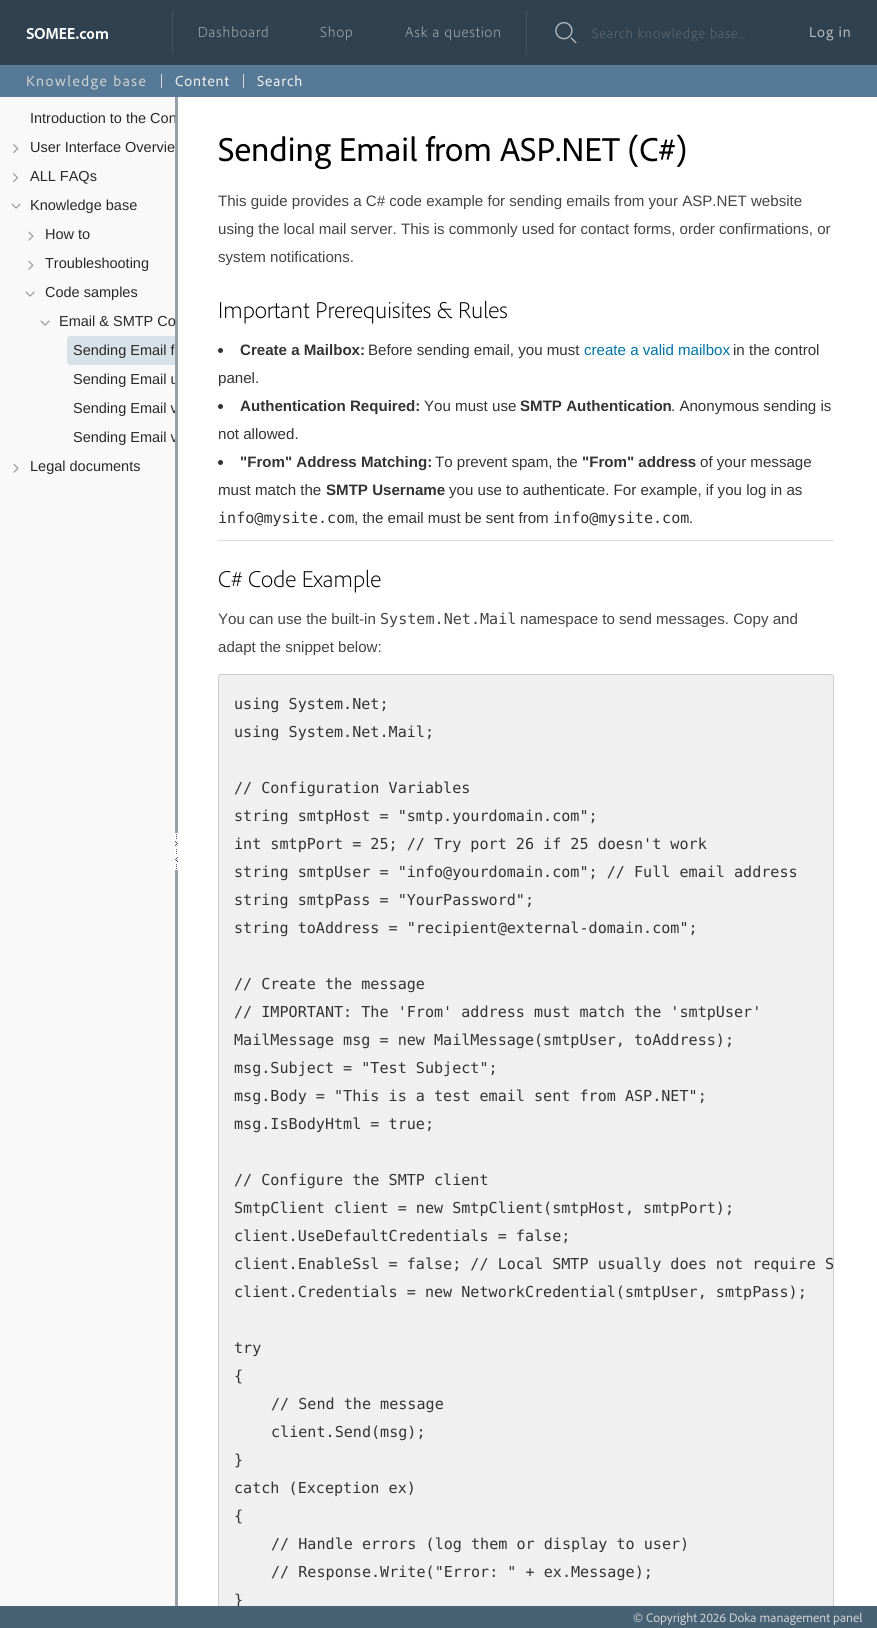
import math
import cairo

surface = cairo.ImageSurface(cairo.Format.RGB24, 877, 1628)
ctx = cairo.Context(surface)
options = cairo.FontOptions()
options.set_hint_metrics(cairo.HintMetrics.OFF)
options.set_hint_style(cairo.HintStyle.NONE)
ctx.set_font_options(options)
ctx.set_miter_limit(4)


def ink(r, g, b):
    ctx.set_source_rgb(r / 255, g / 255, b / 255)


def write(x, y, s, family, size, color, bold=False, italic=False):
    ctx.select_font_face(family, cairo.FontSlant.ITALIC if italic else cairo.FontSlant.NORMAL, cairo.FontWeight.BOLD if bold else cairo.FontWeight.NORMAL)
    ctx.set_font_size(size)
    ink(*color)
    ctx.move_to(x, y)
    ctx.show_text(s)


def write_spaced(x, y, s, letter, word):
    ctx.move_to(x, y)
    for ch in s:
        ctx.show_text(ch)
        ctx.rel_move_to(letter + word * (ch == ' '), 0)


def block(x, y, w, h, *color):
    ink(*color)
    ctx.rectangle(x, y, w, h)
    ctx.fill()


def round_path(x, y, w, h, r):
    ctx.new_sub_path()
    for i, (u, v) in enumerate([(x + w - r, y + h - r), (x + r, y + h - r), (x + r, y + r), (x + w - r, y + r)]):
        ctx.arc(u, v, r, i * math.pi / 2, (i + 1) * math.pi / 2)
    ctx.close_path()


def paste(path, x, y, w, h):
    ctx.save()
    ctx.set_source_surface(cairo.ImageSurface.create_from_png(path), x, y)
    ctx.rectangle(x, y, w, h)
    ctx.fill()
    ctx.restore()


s1 = dict(family="Liberation Sans", size=14.5, color=(40, 40, 40))
s2 = dict(family="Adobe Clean", size=34.5, color=(0, 0, 0))
s3 = dict(family="Liberation Sans", size=15.1, color=(68, 68, 68))
s4 = dict(family="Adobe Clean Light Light", size=23.75, color=(0, 0, 0))
s5 = dict(family="Liberation Sans", size=15.1, color=(51, 51, 51), bold=True)
s6 = dict(family="Liberation Sans", size=15.1, color=(51, 51, 51))
s7 = dict(family="Liberation Sans", size=15.1, color=(0, 114, 163))
s8 = dict(family="DejaVu Sans Mono", size=15.1, color=(51, 51, 51))
s9 = dict(family="DejaVu Sans Mono", size=15.1, color=(68, 68, 68))
s10 = dict(family="Adobe Clean", size=13, color=(208, 208, 208))

ink(255, 255, 255)
ctx.paint()
block(0, 0, 877, 65, 48, 66, 80)
paste("pic1.png", 26, 28, 82, 11)
block(172, 11, 1, 43, 68, 84, 97)
ctx.select_font_face("Adobe Clean Light Light")
ctx.set_font_size(15)
ink(179, 186, 191)
write_spaced(198, 37, "Dashboard", 0.9, 0)
write_spaced(320, 37, "Shop", 0.9, 0)
write_spaced(405, 37, "Ask a question", 0.9, 0)
block(526, 11, 1, 43, 68, 84, 97)
paste("pic2.png", 555, 22, 22, 22)
ctx.save()
ctx.rectangle(592, 24, 180, 17)
ctx.clip()
ctx.set_font_size(14)
ink(105, 112, 116)
write_spaced(592, 38, "Search knowledge base...", 0.9, 0)
ctx.restore()
ctx.select_font_face("Adobe Clean")
ink(179, 186, 191)
write_spaced(809, 37, "Log in", 0.9, 0)
block(0, 65, 877, 32, 85, 121, 150)
ctx.set_font_size(15.1)
ink(208, 208, 208)
write_spaced(26, 86, "Knowledge base", 1.5, 0)
block(161, 74, 1, 14, 214, 214, 214)
ink(238, 238, 238)
write_spaced(175, 86, "Content", 0.9, 0)
block(243, 74, 1, 14, 214, 214, 214)
ink(238, 238, 238)
write_spaced(257, 86, "Search", 0.9, 0)
block(175, 97, 3, 1509, 151, 160, 167)
paste("pic3.png", 175, 833, 3, 37)
block(0, 97, 175, 1509, 249, 249, 249)
ctx.save()
ctx.rectangle(0, 106, 175, 377)
ctx.clip()
write(30, 123, "Introduction to the Con", **s1)
ctx.restore()
paste("pic4.png", 13, 144, 6, 9)
write(30, 152, "User Interface Overvie", **s1)
paste("pic5.png", 13, 173, 6, 10)
write(30, 181, "ALL FAQs", **s1)
paste("pic6.png", 11, 203, 10, 6)
write(30, 210, "Knowledge base", **s1)
paste("pic7.png", 28, 231, 6, 10)
write(45, 239, "How to", **s1)
paste("pic8.png", 28, 260, 6, 10)
write(45, 268, "Troubleshooting", **s1)
paste("pic6.png", 25, 291, 10, 6)
write(45, 297, "Code samples", **s1)
paste("pic6.png", 40, 320, 10, 6)
write(59, 326, "Email & SMTP Co", **s1)
ink(216, 227, 233)
ctx.new_path()
ctx.move_to(70, 336)
ctx.line_to(175, 336)
ctx.line_to(175, 365)
ctx.line_to(70, 365)
ctx.curve_to(68.5, 365, 67, 363.5, 67, 362)
ctx.line_to(67, 339)
ctx.curve_to(67, 337.5, 68.5, 336, 70, 336)
ctx.close_path()
ctx.fill()
write(73, 355, "Sending Email f", **s1)
ctx.save()
ctx.rectangle(0, 106, 175, 377)
ctx.clip()
write(73, 384, "Sending Email u", **s1)
write(73, 413, "Sending Email v", **s1)
write(73, 442, "Sending Email v", **s1)
ctx.restore()
paste("pic9.png", 13, 463, 6, 10)
write(30, 471, "Legal documents", **s1)
write(218, 161, "Sending Email from ASP.NET (C#)", **s2)
write(218, 206, "This guide provides a C# code example for sending emails from your ASP.NET website", **s3)
write(218, 234, "using the local mail server. This is commonly used for contact forms, order confirmations, or", **s3)
write(218, 262, "system notifications.", **s3)
write(218, 318, "Important Prerequisites & Rules", **s4)
ink(51, 51, 51)
ctx.new_path()
ctx.arc(220.5, 350.5, 2.5, 0, 2 * math.pi)
ctx.fill()
write(240, 355, "Create a Mailbox:", **s5)
write(368, 355, "Before sending email, you must", **s6)
write(584, 355, "create a valid mailbox", **s7)
write(733, 355, "in the control", **s6)
write(218, 383, "panel.", **s6)
ctx.new_path()
ctx.arc(220.5, 406.5, 2.5, 0, 2 * math.pi)
ctx.fill()
write(240, 411, "Authentication Required:", **s5)
write(424, 411, "You must use", **s6)
write(520, 411, "SMTP Authentication", **s5)
write(671, 411, ". Anonymous sending is", **s6)
write(218, 439, "not allowed.", **s6)
ctx.new_path()
ctx.arc(220.5, 462.5, 2.5, 0, 2 * math.pi)
ctx.fill()
write(240, 467, "\"From\" Address Matching:", **s5)
write(435, 467, "To prevent spam, the", **s6)
write(582, 467, "\"From\" address", **s5)
write(700, 467, "of your message", **s6)
write(218, 495, "must match the", **s6)
write(326, 495, "SMTP Username", **s5)
write(449, 495, "you use to authenticate. For example, if you log in as", **s6)
write(218, 523, "info@mysite.com", **s8)
write(354, 523, ", the email must be sent from", **s6)
write(553, 523, "info@mysite.com", **s8)
write(689, 523, ".", **s6)
block(218, 540, 616, 1, 221, 221, 221)
write(218, 587, "C# Code Example", **s4)
write(218, 624, "You can use the built-in", **s3)
write(380, 624, "System.Net.Mail", **s9)
write(520, 624, "namespace to send messages. Copy and", **s3)
write(218, 652, "adapt the snippet below:", **s3)
ink(240, 240, 240)
ctx.new_path()
ctx.move_to(221, 674)
ctx.line_to(831, 674)
ctx.curve_to(832.5, 674, 834, 675.5, 834, 677)
ctx.line_to(834, 1606)
ctx.line_to(218, 1606)
ctx.line_to(218, 677)
ctx.curve_to(218, 675.5, 219.5, 674, 221, 674)
ctx.close_path()
ctx.fill()
block(0, 1606, 877, 22, 71, 97, 117)
write(633, 1622, "© Copyright 2026 Doka management panel", **s10)
ctx.save()
ctx.rectangle(175, 97, 702, 1509)
ctx.clip()
round_path(218.5, 674.5, 615, 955, 2.5)
ink(204, 204, 204)
ctx.set_line_width(1)
ctx.stroke()
ctx.restore()
write(234, 709, "using System.Net;", **s8)
write(234, 737, "using System.Net.Mail;", **s8)
write(234, 793, "// Configuration Variables", **s8)
write(234, 821, "string smtpHost = \"smtp.yourdomain.com\";", **s8)
write(234, 849, "int smtpPort = 25; // Try port 26 if 25 doesn't work", **s8)
write(234, 877, "string smtpUser = \"info@yourdomain.com\"; // Full email address", **s8)
write(234, 905, "string smtpPass = \"YourPassword\";", **s8)
write(234, 933, "string toAddress = \"recipient@external-domain.com\";", **s8)
write(234, 989, "// Create the message", **s8)
write(234, 1017, "// IMPORTANT: The 'From' address must match the 'smtpUser'", **s8)
write(234, 1045, "MailMessage msg = new MailMessage(smtpUser, toAddress);", **s8)
write(234, 1073, "msg.Subject = \"Test Subject\";", **s8)
write(234, 1101, "msg.Body = \"This is a test email sent from ASP.NET\";", **s8)
write(234, 1129, "msg.IsBodyHtml = true;", **s8)
write(234, 1185, "// Configure the SMTP client", **s8)
write(234, 1213, "SmtpClient client = new SmtpClient(smtpHost, smtpPort);", **s8)
write(234, 1241, "client.UseDefaultCredentials = false;", **s8)
write(234, 1269, "client.EnableSsl = false; // Local SMTP usually does not require S", **s8)
write(234, 1297, "client.Credentials = new NetworkCredential(smtpUser, smtpPass);", **s8)
write(234, 1353, "try", **s8)
write(234, 1381, "{", **s8)
write(271, 1409, "// Send the message", **s8)
write(271, 1437, "client.Send(msg);", **s8)
write(234, 1465, "}", **s8)
write(234, 1493, "catch (Exception ex)", **s8)
write(234, 1521, "{", **s8)
write(271, 1549, "// Handle errors (log them or display to user)", **s8)
write(271, 1577, "// Response.Write(\"Error: \" + ex.Message);", **s8)
ctx.save()
ctx.rectangle(175, 97, 702, 1509)
ctx.clip()
write(234, 1605, "}", **s8)
ctx.restore()
surface.write_to_png("screenshot.png")
